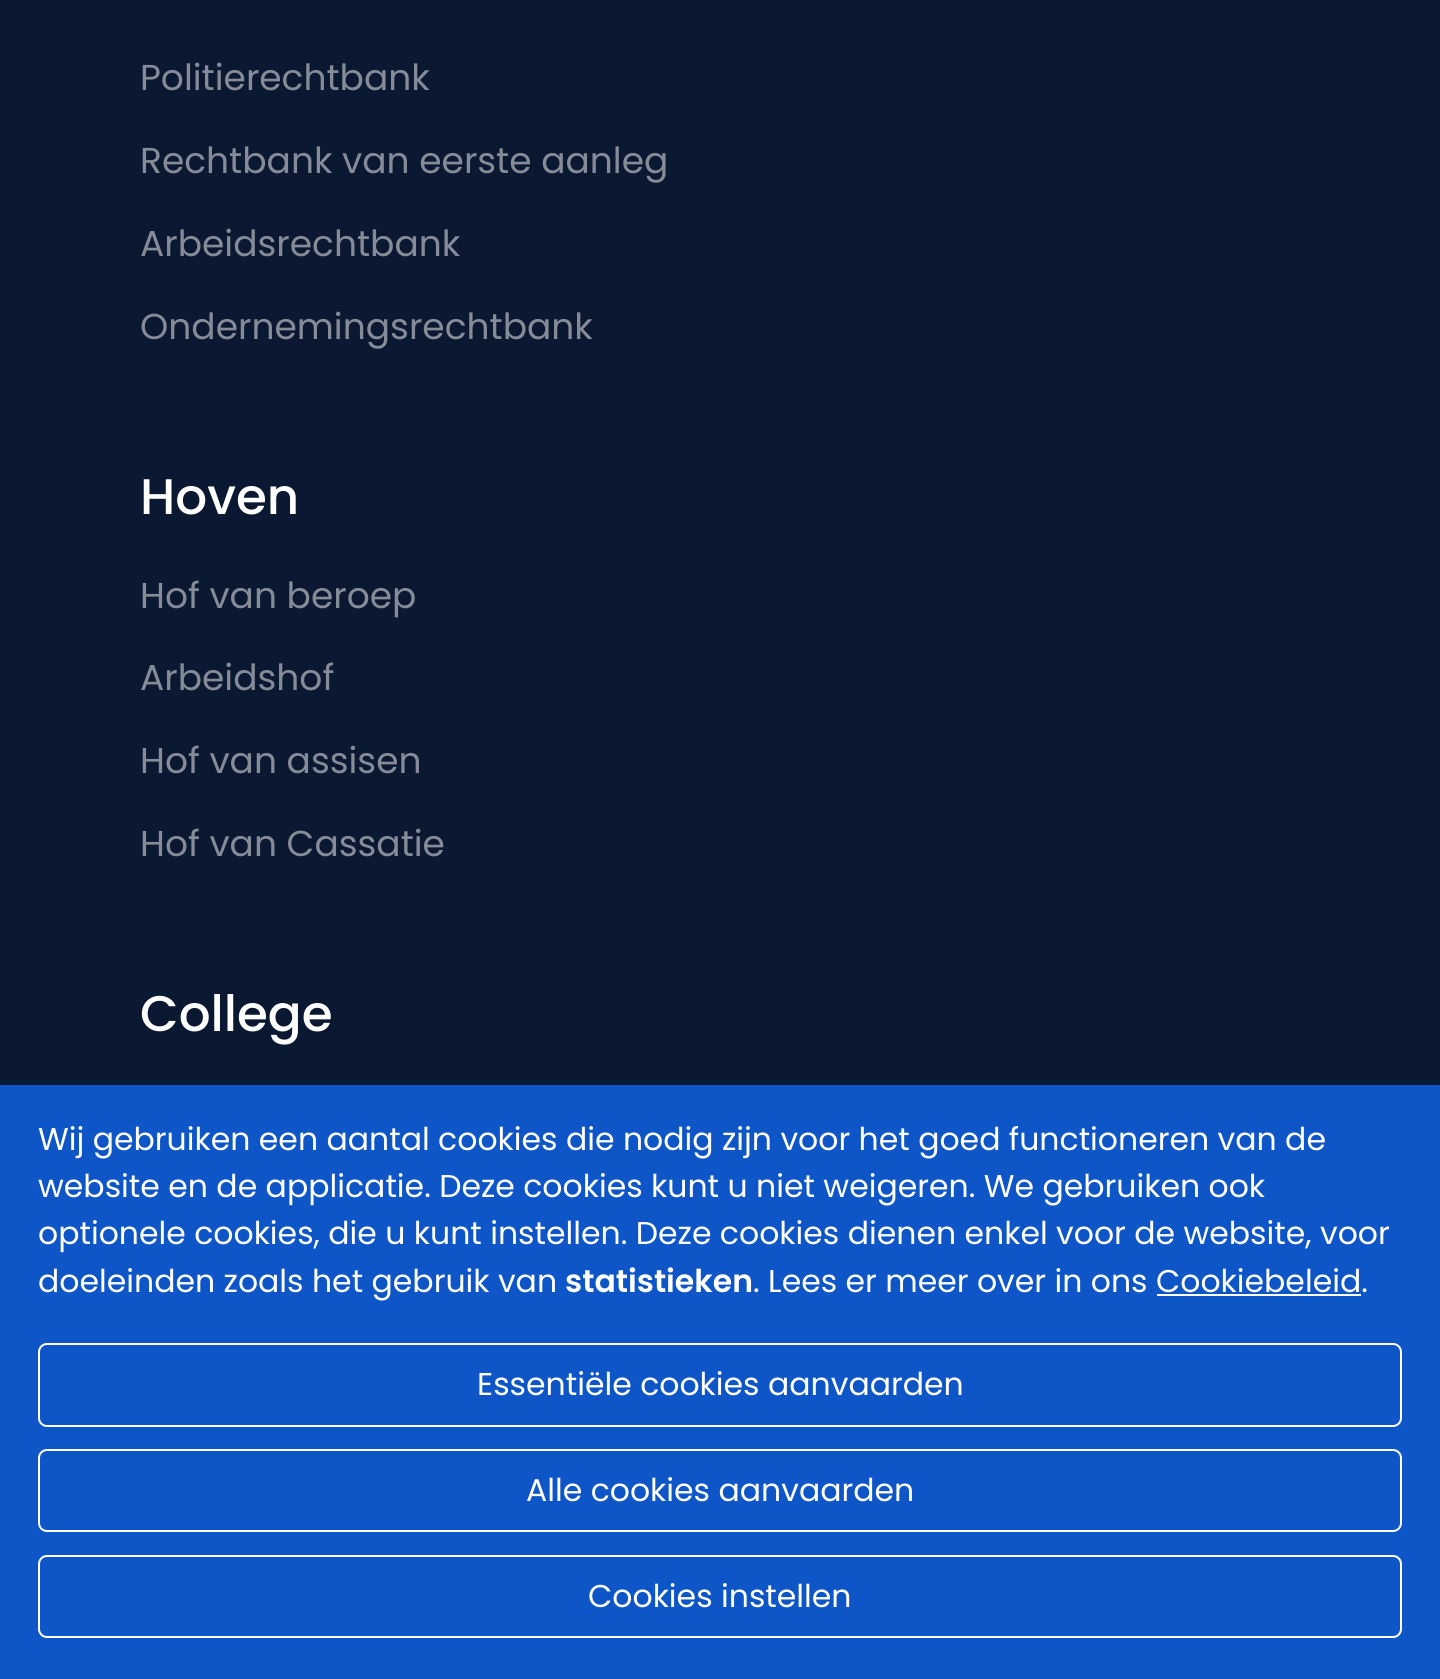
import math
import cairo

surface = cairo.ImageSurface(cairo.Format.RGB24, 1440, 1679)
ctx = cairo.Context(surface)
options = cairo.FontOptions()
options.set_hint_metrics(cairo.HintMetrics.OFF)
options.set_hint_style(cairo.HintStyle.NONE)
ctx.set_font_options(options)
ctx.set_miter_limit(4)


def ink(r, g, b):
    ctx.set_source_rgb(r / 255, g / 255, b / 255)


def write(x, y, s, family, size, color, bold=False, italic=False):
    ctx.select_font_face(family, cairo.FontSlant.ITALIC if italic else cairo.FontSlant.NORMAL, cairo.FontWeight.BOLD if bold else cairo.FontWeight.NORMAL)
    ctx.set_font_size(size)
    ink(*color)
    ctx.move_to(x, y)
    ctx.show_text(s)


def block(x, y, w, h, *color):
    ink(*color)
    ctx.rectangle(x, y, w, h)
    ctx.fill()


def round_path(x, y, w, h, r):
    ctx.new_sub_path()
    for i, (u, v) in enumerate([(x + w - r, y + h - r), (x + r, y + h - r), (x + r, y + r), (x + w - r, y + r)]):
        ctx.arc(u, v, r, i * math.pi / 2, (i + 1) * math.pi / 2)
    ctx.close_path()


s1 = dict(family="Poppins", size=36, color=(133, 140, 152))
s2 = dict(family="Poppins Medium", size=50, color=(255, 255, 255))
s3 = dict(family="Poppins", size=31.5, color=(255, 255, 255))
s4 = dict(family="Poppins SemiBold", size=31.5, color=(255, 255, 255))

ink(10, 25, 49)
ctx.paint()
write(140, 90, "Politierechtbank", **s1)
write(140, 173, "Rechtbank van eerste aanleg", **s1)
write(140, 256, "Arbeidsrechtbank", **s1)
write(140, 339, "Ondernemingsrechtbank", **s1)
write(140, 514, "Hoven", **s2)
write(140, 608, "Hof van beroep", **s1)
write(140, 690, "Arbeidshof", **s1)
write(140, 773, "Hof van assisen", **s1)
write(140, 856, "Hof van Cassatie", **s1)
write(140, 1031, "College", **s2)
block(0, 1085, 1440, 594, 14, 86, 199)
write(38, 1150, "Wij gebruiken een aantal cookies die nodig zijn voor het goed functioneren van de", **s3)
write(38, 1197, "website en de applicatie. Deze cookies kunt u niet weigeren. We gebruiken ook", **s3)
write(38, 1244, "optionele cookies, die u kunt instellen. Deze cookies dienen enkel voor de website, voor", **s3)
write(38, 1292, "doeleinden zoals het gebruik van", **s3)
write(565, 1292, "statistieken", **s4)
write(753, 1292, ". Lees er meer over in ons Cookiebeleid.", **s3)
block(1157, 1294, 204, 2, 255, 255, 255)
round_path(39, 1344, 1362, 82, 8)
ctx.stroke()
write(477, 1395, "Essentiële cookies aanvaarden", **s3)
round_path(39, 1450, 1362, 81, 8)
ctx.stroke()
write(526, 1501, "Alle cookies aanvaarden", **s3)
round_path(39, 1556, 1362, 81, 8)
ctx.stroke()
write(588, 1607, "Cookies instellen", **s3)
surface.write_to_png("screenshot.png")
